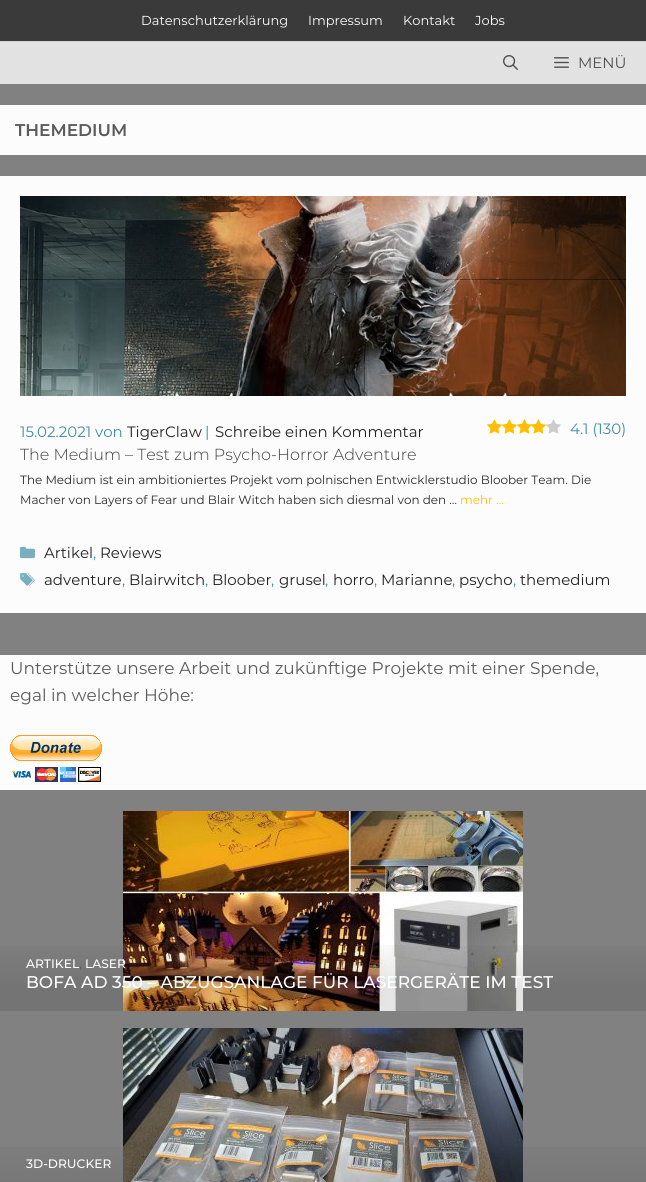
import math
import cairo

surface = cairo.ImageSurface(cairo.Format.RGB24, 646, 1182)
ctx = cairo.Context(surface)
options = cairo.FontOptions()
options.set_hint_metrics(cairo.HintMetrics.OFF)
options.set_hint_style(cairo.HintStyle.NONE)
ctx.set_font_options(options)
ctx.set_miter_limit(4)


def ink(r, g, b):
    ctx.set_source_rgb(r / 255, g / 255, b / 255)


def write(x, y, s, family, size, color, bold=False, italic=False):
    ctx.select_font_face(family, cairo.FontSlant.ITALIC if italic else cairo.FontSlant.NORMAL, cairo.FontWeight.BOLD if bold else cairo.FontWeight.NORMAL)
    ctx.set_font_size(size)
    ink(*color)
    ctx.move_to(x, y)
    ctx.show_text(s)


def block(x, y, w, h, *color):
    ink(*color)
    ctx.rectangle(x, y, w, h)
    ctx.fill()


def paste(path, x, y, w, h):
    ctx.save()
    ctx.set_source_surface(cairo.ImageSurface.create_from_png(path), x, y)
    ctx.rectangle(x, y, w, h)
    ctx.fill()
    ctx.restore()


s1 = dict(family="Montserrat", size=13, color=(255, 255, 255))
s2 = dict(family="Montserrat", size=15, color=(79, 79, 79))
s3 = dict(family="Montserrat SemiBold", size=17, color=(91, 91, 91))
s4 = dict(family="Montserrat", size=15, color=(65, 140, 163))
s5 = dict(family="Montserrat", size=15, color=(33, 33, 33))
s6 = dict(family="Montserrat Light", size=16, color=(63, 63, 63))
s7 = dict(family="Montserrat", size=12, color=(40, 40, 40))
s8 = dict(family="Montserrat", size=12, color=(255, 191, 0))
s9 = dict(family="Montserrat", size=17, color=(91, 91, 91))
s10 = dict(family="Montserrat Medium", size=12.25, color=(255, 255, 255))
s11 = dict(family="Montserrat", size=14, color=(91, 91, 91))
s12 = dict(family="Montserrat Medium", size=17, color=(255, 255, 255))

ink(129, 129, 129)
ctx.paint()
block(0, 0, 646, 41, 58, 58, 58)
write(141, 25, "Datenschutzerklärung", **s1)
write(308, 25, "Impressum", **s1)
write(403, 25, "Kontakt", **s1)
write(475, 25, "Jobs", **s1)
block(0, 42, 646, 42, 226, 226, 226)
block(0, 41, 646, 1, 212, 215, 216)
paste("pic1.png", 503, 55, 15, 15)
paste("pic2.png", 554, 57, 15, 11)
write(578, 68, "MENÜ", **s2)
block(0, 105, 646, 50, 252, 252, 252)
write(15, 136, "THEMEDIUM", **s3)
block(0, 176, 646, 437, 252, 252, 252)
paste("pic3.png", 20, 196, 606, 200)
write(20, 437, "15.02.2021 von", **s4)
write(127, 437, "TigerClaw", **s5)
write(205, 437, "|", **s4)
write(215, 437, "Schreibe einen Kommentar", **s5)
paste("pic4.png", 487, 419, 15, 15)
paste("pic4.png", 502, 419, 15, 15)
paste("pic4.png", 517, 419, 15, 15)
paste("pic5.png", 531, 419, 15, 15)
paste("pic6.png", 546, 419, 15, 15)
write(570, 434, "4.1 (130)", **s4)
write(20, 460, "The Medium – Test zum Psycho-Horror Adventure", **s6)
write(20, 484, "The Medium ist ein ambitioniertes Projekt vom polnischen Entwicklerstudio Bloober Team. Die", **s7)
write(20, 504, "Macher von Layers of Fear und Blair Witch haben sich diesmal von den …", **s7)
write(460, 504, "mehr …", **s8)
paste("pic7.png", 20, 546, 15, 13)
write(44, 558, "Artikel", **s5)
write(93, 558, ",", **s4)
write(100, 558, "Reviews", **s5)
paste("pic8.png", 20, 573, 15, 13)
write(44, 585, "adventure", **s5)
write(122, 585, ",", **s4)
write(129, 585, "Blairwitch", **s5)
write(205, 585, ",", **s4)
write(212, 585, "Bloober", **s5)
write(271, 585, ",", **s4)
write(279, 585, "grusel", **s5)
write(325, 585, ",", **s4)
write(333, 585, "horro", **s5)
write(374, 585, ",", **s4)
write(381, 585, "Marianne", **s5)
write(452, 585, ",", **s4)
write(459, 585, "psycho", **s5)
write(513, 585, ",", **s4)
write(520, 585, "themedium", **s5)
block(0, 655, 646, 135, 252, 252, 252)
write(10, 674, "Unterstütze unsere Arbeit und zukünftige Projekte mit einer Spende,", **s9)
write(10, 701, "egal in welcher Höhe:", **s9)
paste("pic9.png", 10, 735, 92, 47)
paste("pic10.png", 123, 811, 400, 200)
gradient = cairo.LinearGradient(323, 1011, 323, 933)
gradient.add_color_stop_rgba(0.3, 0, 0, 0, 0.1)
gradient.add_color_stop_rgba(1, 0, 0, 0, 0)
ctx.set_source(gradient)
ctx.rectangle(0, 945, 646, 66)
ctx.fill()
write(26, 968, "ARTIKEL", **s10)
write(79, 968, ",", **s11)
write(85, 968, "LASER", **s10)
write(26, 988, "BOFA AD 350 – ABZUGSANLAGE FÜR LASERGERÄTE IM TEST", **s12)
paste("pic11.png", 123, 1028, 400, 154)
gradient = cairo.LinearGradient(323, 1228, 323, 1133)
gradient.add_color_stop_rgba(0.3, 0, 0, 0, 0.1)
gradient.add_color_stop_rgba(1, 0, 0, 0, 0)
ctx.set_source(gradient)
ctx.rectangle(0, 1147, 646, 35)
ctx.fill()
write(26, 1168, "3D-DRUCKER", **s10)
surface.write_to_png("screenshot.png")
